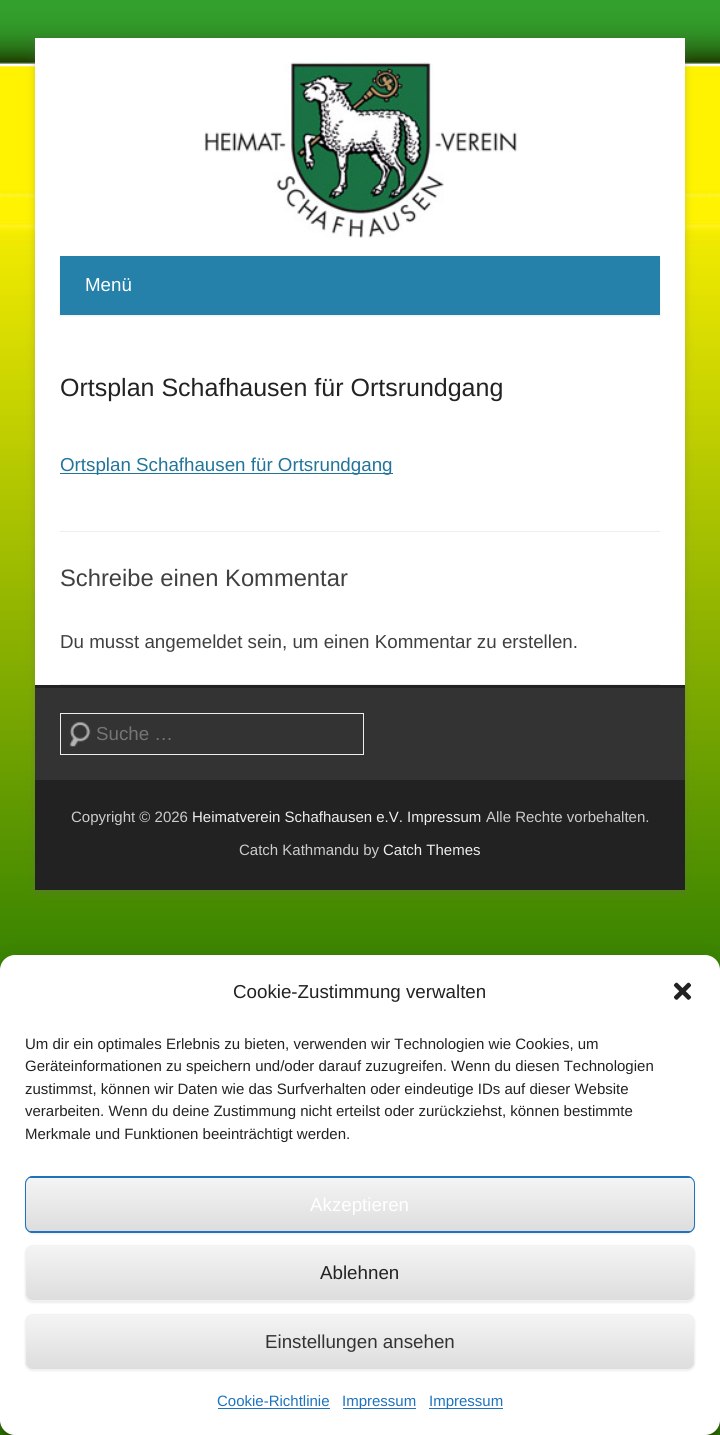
import math
import cairo

surface = cairo.ImageSurface(cairo.Format.RGB24, 720, 1435)
ctx = cairo.Context(surface)
options = cairo.FontOptions()
options.set_hint_metrics(cairo.HintMetrics.OFF)
options.set_hint_style(cairo.HintStyle.NONE)
ctx.set_font_options(options)
ctx.set_miter_limit(4)


def ink(r, g, b):
    ctx.set_source_rgb(r / 255, g / 255, b / 255)


def write(x, y, s, family, size, color, bold=False, italic=False):
    ctx.select_font_face(family, cairo.FontSlant.ITALIC if italic else cairo.FontSlant.NORMAL, cairo.FontWeight.BOLD if bold else cairo.FontWeight.NORMAL)
    ctx.set_font_size(size)
    ink(*color)
    ctx.move_to(x, y)
    ctx.show_text(s)


def block(x, y, w, h, *color):
    ink(*color)
    ctx.rectangle(x, y, w, h)
    ctx.fill()


def round_path(x, y, w, h, r):
    ctx.new_sub_path()
    for i, (u, v) in enumerate([(x + w - r, y + h - r), (x + r, y + h - r), (x + r, y + r), (x + w - r, y + r)]):
        ctx.arc(u, v, r, i * math.pi / 2, (i + 1) * math.pi / 2)
    ctx.close_path()


def blur_box(x, y, w, h, r, blur, alpha):
    ctx.push_group_with_content(cairo.Content.ALPHA)
    ctx.set_operator(cairo.Operator.SOURCE)
    for i in range(15, -16, -2):
        e = blur * i / 6
        if min(w, h) + 2 * e > 0:
            ctx.set_source_rgba(0, 0, 0, alpha * math.erfc((i - 1) / 8.5) / 2)
            round_path(x - e, y - e, w + 2 * e, h + 2 * e, max(0, min(r + e + blur * .6, min(w, h) / 2 + e)))
            ctx.fill()
    ctx.mask(ctx.pop_group())


def paste(path, x, y, w, h):
    ctx.save()
    ctx.set_source_surface(cairo.ImageSurface.create_from_png(path), x, y)
    ctx.rectangle(x, y, w, h)
    ctx.fill()
    ctx.restore()


s1 = dict(family="Liberation Sans", size=18.75, color=(255, 255, 255))
s2 = dict(family="Liberation Sans", size=25, color=(34, 34, 34))
s3 = dict(family="Liberation Sans", size=18.75, color=(33, 117, 155))
s4 = dict(family="Liberation Sans", size=23.75, color=(64, 64, 64))
s5 = dict(family="Liberation Sans", size=18.75, color=(64, 64, 64))
s6 = dict(family="Liberation Sans", size=18.75, color=(117, 117, 117))
s7 = dict(family="Liberation Sans", size=15, color=(204, 204, 204))
s8 = dict(family="Liberation Sans", size=15, color=(238, 238, 238))
s9 = dict(family="Liberation Sans", size=18.75, color=(34, 34, 34))
s10 = dict(family="Liberation Sans", size=15, color=(34, 34, 34))
s11 = dict(family="Liberation Sans", size=18.75, color=(51, 51, 51))
s12 = dict(family="Liberation Sans", size=15, color=(30, 115, 190))

ink(255, 255, 255)
ctx.paint()
paste("pic1.png", 0, 0, 720, 1435)
ink(100, 100, 100)
blur_box(35, 40, 650, 853, 0, 4, 0.3)
block(35, 38, 650, 647, 255, 255, 255)
paste("pic2.png", 204, 62, 313, 176)
ink(64, 64, 64)
blur_box(60, 258, 600, 58, 0, 1, 0.1)
block(60, 256, 600, 59, 37, 129, 170)
write(85, 291, "Menü", **s1)
block(60, 684, 600, 1, 238, 238, 238)
block(60, 531, 600, 1, 238, 238, 238)
write(60, 396, "Ortsplan Schafhausen für Ortsrundgang", **s2)
block(60, 473, 333, 1, 33, 117, 155)
write(60, 471, "Ortsplan Schafhausen für Ortsrundgang", **s3)
write(60, 586, "Schreibe einen Kommentar", **s4)
write(60, 648, "Du musst angemeldet sein, um einen Kommentar zu erstellen.", **s5)
block(35, 685, 650, 3, 34, 34, 34)
block(35, 688, 650, 92, 51, 51, 51)
paste("pic3.png", 69, 721, 22, 26)
ctx.rectangle(60.5, 713.5, 303, 41)
ink(238, 238, 238)
ctx.set_line_width(1)
ctx.stroke()
write(96, 740, "Suche …", **s6)
block(35, 780, 650, 110, 34, 34, 34)
write(71, 822, "Copyright © 2026", **s7)
write(192, 822, "Heimatverein Schafhausen e.V. Impressum", **s8)
write(486, 822, "Alle Rechte vorbehalten.", **s7)
write(239, 855, "Catch Kathmandu by", **s7)
write(383, 855, "Catch Themes", **s8)
ink(0, 0, 0)
blur_box(0, 963, 720, 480, 15, 4, 0.23)
blur_box(0, 968, 720, 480, 15, 12.5, 0.19)
ink(255, 255, 255)
round_path(0, 955, 720, 480, 15)
ctx.fill()
write(233, 998, "Cookie-Zustimmung verwalten", **s9)
paste("pic4.png", 673, 982, 19, 18)
write(25, 1049, "Um dir ein optimales Erlebnis zu bieten, verwenden wir Technologien wie Cookies, um", **s10)
write(25, 1071, "Geräteinformationen zu speichern und/oder darauf zuzugreifen. Wenn du diesen Technologien", **s10)
write(25, 1094, "zustimmst, können wir Daten wie das Surfverhalten oder eindeutige IDs auf dieser Website", **s10)
write(25, 1116, "verarbeiten. Wenn du deine Zustimmung nicht erteilst oder zurückziehst, können bestimmte", **s10)
write(25, 1139, "Merkmale und Funktionen beeinträchtigt werden.", **s10)
ink(64, 64, 64)
blur_box(25, 1178, 670, 56, 8, 1, 0.1)
ink(30, 115, 190)
round_path(25, 1176, 670, 57, 8)
ctx.fill()
ctx.save()
round_path(25, 1176, 670, 57, 8)
ctx.clip()
gradient = cairo.LinearGradient(360, 1178, 360, 1231)
gradient.add_color_stop_rgba(0, 0.957, 0.957, 0.957, 1)
gradient.add_color_stop_rgba(1, 0.867, 0.867, 0.867, 1)
ctx.set_source(gradient)
ctx.rectangle(25, 1178, 670, 53)
ctx.fill()
ctx.restore()
round_path(25.5, 1176.5, 669, 56, 7.5)
ctx.stroke()
write(310, 1211, "Akzeptieren", **s1)
ink(64, 64, 64)
blur_box(25, 1246, 670, 57, 8, 1, 0.1)
ctx.save()
round_path(25, 1245, 670, 56, 8)
ctx.clip()
gradient = cairo.LinearGradient(360, 1246, 360, 1300)
gradient.add_color_stop_rgba(0, 0.957, 0.957, 0.957, 1)
gradient.add_color_stop_rgba(1, 0.867, 0.867, 0.867, 1)
ctx.set_source(gradient)
ctx.rectangle(25, 1246, 670, 54)
ctx.fill()
ctx.restore()
round_path(25.5, 1245.5, 669, 55, 7.5)
ink(242, 242, 242)
ctx.stroke()
write(320, 1279, "Ablehnen", **s9)
ink(64, 64, 64)
blur_box(25, 1315, 670, 56, 8, 1, 0.1)
ctx.save()
round_path(25, 1314, 670, 56, 8)
ctx.clip()
gradient = cairo.LinearGradient(360, 1315, 360, 1369)
gradient.add_color_stop_rgba(0, 0.957, 0.957, 0.957, 1)
gradient.add_color_stop_rgba(1, 0.867, 0.867, 0.867, 1)
ctx.set_source(gradient)
ctx.rectangle(25, 1315, 670, 54)
ctx.fill()
ctx.restore()
round_path(25.5, 1314.5, 669, 55, 7.5)
ink(242, 242, 242)
ctx.stroke()
write(265, 1348, "Einstellungen ansehen", **s11)
write(217, 1406, "Cookie-Richtlinie", **s12)
block(218, 1408, 112, 1, 30, 115, 190)
block(343, 1408, 73, 1, 30, 115, 190)
write(342, 1406, "Impressum", **s12)
block(429, 1408, 74, 1, 30, 115, 190)
write(429, 1406, "Impressum", **s12)
surface.write_to_png("screenshot.png")
